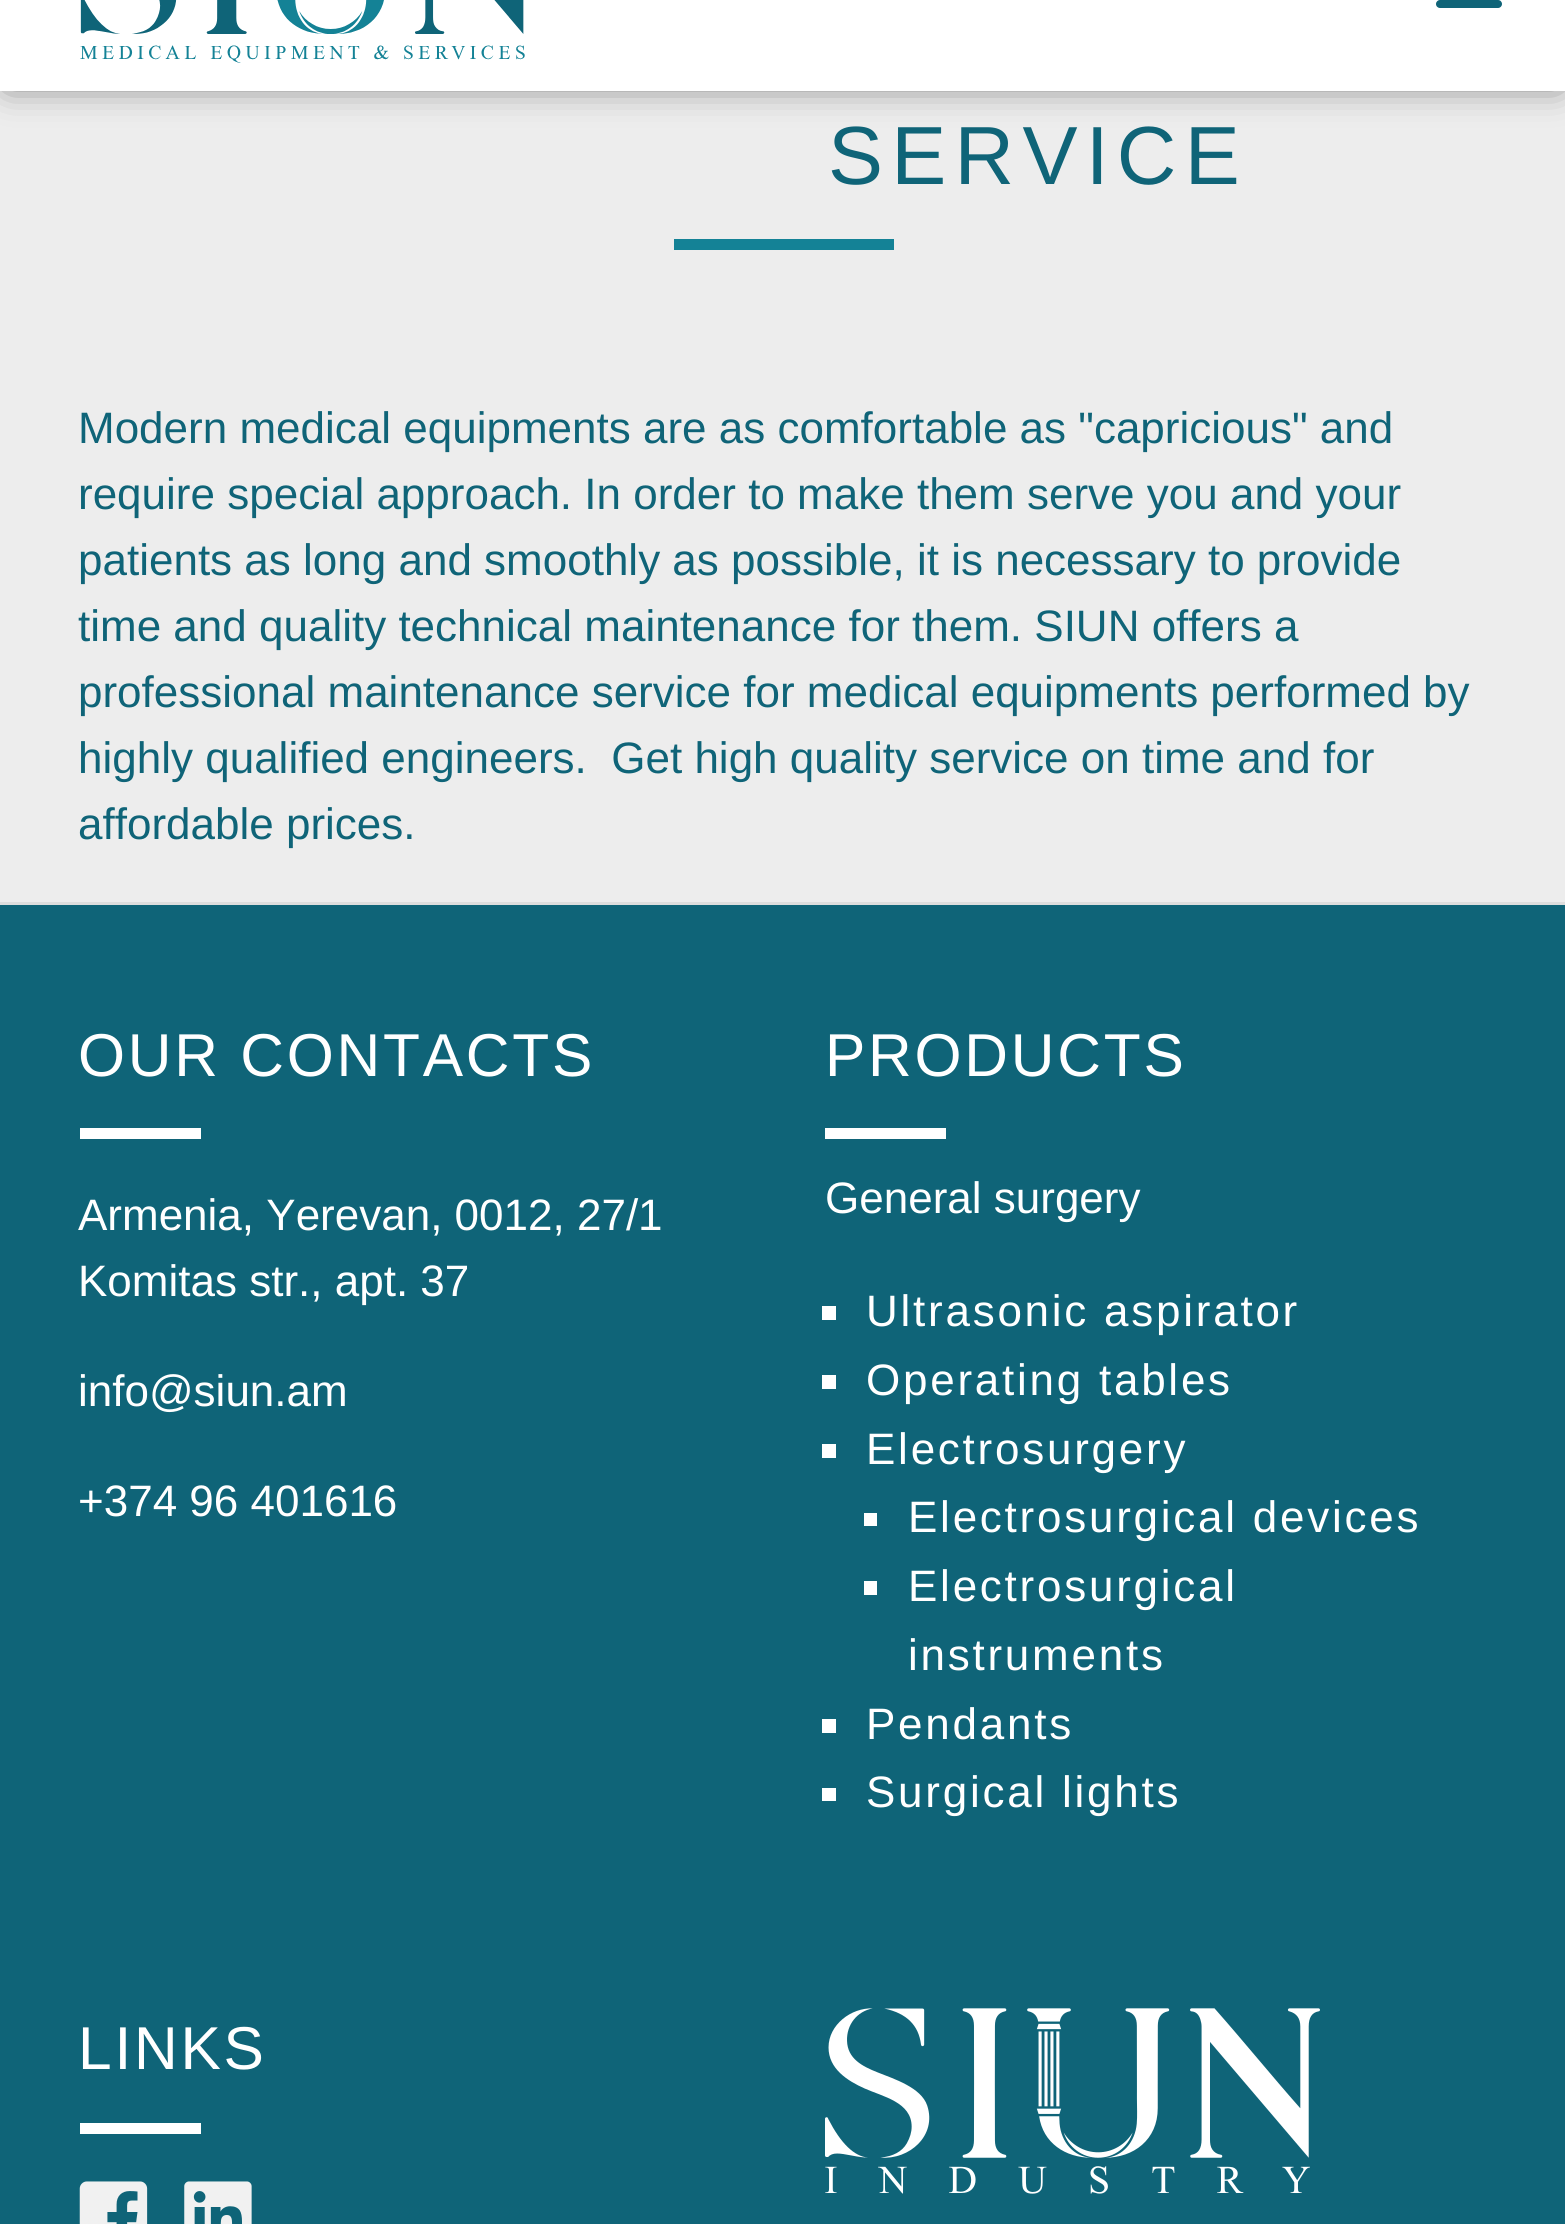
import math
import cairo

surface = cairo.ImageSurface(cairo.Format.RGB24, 1565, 2224)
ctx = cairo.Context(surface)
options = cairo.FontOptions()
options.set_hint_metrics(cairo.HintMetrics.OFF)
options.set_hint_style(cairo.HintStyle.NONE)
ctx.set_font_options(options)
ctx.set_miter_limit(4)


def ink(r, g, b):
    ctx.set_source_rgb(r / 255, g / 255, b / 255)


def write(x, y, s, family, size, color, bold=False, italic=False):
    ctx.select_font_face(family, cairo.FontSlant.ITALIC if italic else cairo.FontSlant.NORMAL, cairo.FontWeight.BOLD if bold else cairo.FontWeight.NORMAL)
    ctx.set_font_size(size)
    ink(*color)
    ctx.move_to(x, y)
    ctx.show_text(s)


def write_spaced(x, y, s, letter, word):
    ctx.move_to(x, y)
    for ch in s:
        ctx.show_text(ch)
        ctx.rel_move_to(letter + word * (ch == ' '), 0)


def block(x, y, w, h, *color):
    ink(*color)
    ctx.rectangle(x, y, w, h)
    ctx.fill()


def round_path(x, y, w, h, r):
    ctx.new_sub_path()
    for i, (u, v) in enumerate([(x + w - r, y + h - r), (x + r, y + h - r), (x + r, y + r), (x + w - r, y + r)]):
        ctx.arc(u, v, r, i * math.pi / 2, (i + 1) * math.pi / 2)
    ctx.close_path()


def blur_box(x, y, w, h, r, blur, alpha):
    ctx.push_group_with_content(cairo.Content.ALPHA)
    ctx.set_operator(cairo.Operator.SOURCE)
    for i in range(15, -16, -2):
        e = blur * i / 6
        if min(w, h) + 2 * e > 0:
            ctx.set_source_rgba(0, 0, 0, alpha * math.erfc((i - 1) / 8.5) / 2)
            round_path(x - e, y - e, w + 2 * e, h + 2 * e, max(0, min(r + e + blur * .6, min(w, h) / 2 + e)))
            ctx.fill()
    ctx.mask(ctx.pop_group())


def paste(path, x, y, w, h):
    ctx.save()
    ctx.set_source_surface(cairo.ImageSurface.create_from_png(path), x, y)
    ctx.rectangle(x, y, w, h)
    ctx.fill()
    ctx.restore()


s1 = dict(family="Liberation Sans", size=44, color=(15, 100, 120))
s2 = dict(family="Liberation Sans", size=44, color=(255, 255, 255))

ink(237, 237, 237)
ctx.paint()
ink(0, 0, 0)
blur_box(8, -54, 1551, 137, 0, 18, 0.61)
block(0, 0, 1565, 91, 255, 255, 255)
paste("pic1.png", 80, 0, 445, 63)
ink(15, 100, 120)
round_path(1436, 0, 66, 8, 4)
ctx.fill()
ctx.select_font_face("Liberation Sans")
ctx.set_font_size(82.5)
write_spaced(828, 184, "SERVICE", 8.25, 0)
block(674, 239, 220, 11, 20, 130, 150)
write(78, 443, "Modern medical equipments are as comfortable as \"capricious\" and", **s1)
write(78, 509, "require special approach. In order to make them serve you and your", **s1)
write(78, 575, "patients as long and smoothly as possible, it is necessary to provide", **s1)
write(78, 641, "time and quality technical maintenance for them. SIUN offers a", **s1)
write(78, 707, "professional maintenance service for medical equipments performed by", **s1)
write(78, 773, "highly qualified engineers.  Get high quality service on time and for", **s1)
write(78, 839, "affordable prices.", **s1)
block(0, 905, 1565, 1319, 15, 100, 120)
block(0, 902, 1565, 3, 221, 221, 221)
ctx.set_font_size(60.5)
ink(255, 255, 255)
write_spaced(78, 1076, "OUR CONTACTS", 2.75, 0)
block(80, 1128, 121, 11, 255, 255, 255)
write(78, 1230, "Armenia, Yerevan, 0012, 27/1", **s2)
write(78, 1296, "Komitas str., apt. 37", **s2)
write(78, 1406, "info@siun.am", **s2)
write(78, 1516, "+374 96 401616", **s2)
ctx.set_font_size(60.5)
write_spaced(825, 1076, "PRODUCTS", 2.75, 0)
block(825, 1128, 121, 11, 255, 255, 255)
write(825, 1213, "General surgery", **s2)
block(822, 1306, 14, 14, 255, 255, 255)
write_spaced(866, 1326, "Ultrasonic aspirator", 2.75, 0)
block(822, 1375, 14, 14, 255, 255, 255)
write_spaced(866, 1395, "Operating tables", 2.75, 0)
block(822, 1444, 14, 14, 255, 255, 255)
write_spaced(866, 1464, "Electrosurgery", 2.75, 0)
block(864, 1513, 13, 13, 255, 255, 255)
write_spaced(908, 1532, "Electrosurgical devices", 2.75, 0)
block(864, 1581, 13, 14, 255, 255, 255)
write_spaced(908, 1601, "Electrosurgical", 2.75, 0)
write_spaced(908, 1670, "instruments", 2.75, 0)
block(822, 1719, 14, 14, 255, 255, 255)
write_spaced(866, 1739, "Pendants", 2.75, 0)
block(822, 1788, 14, 13, 255, 255, 255)
write_spaced(866, 1807, "Surgical lights", 2.75, 0)
ctx.set_font_size(60.5)
write_spaced(78, 2069, "LINKS", 2.75, 0)
block(80, 2123, 121, 11, 255, 255, 255)
paste("pic2.png", 79, 2181, 69, 43)
paste("pic3.png", 184, 2181, 68, 43)
paste("pic4.png", 825, 2008, 495, 186)
surface.write_to_png("screenshot.png")
